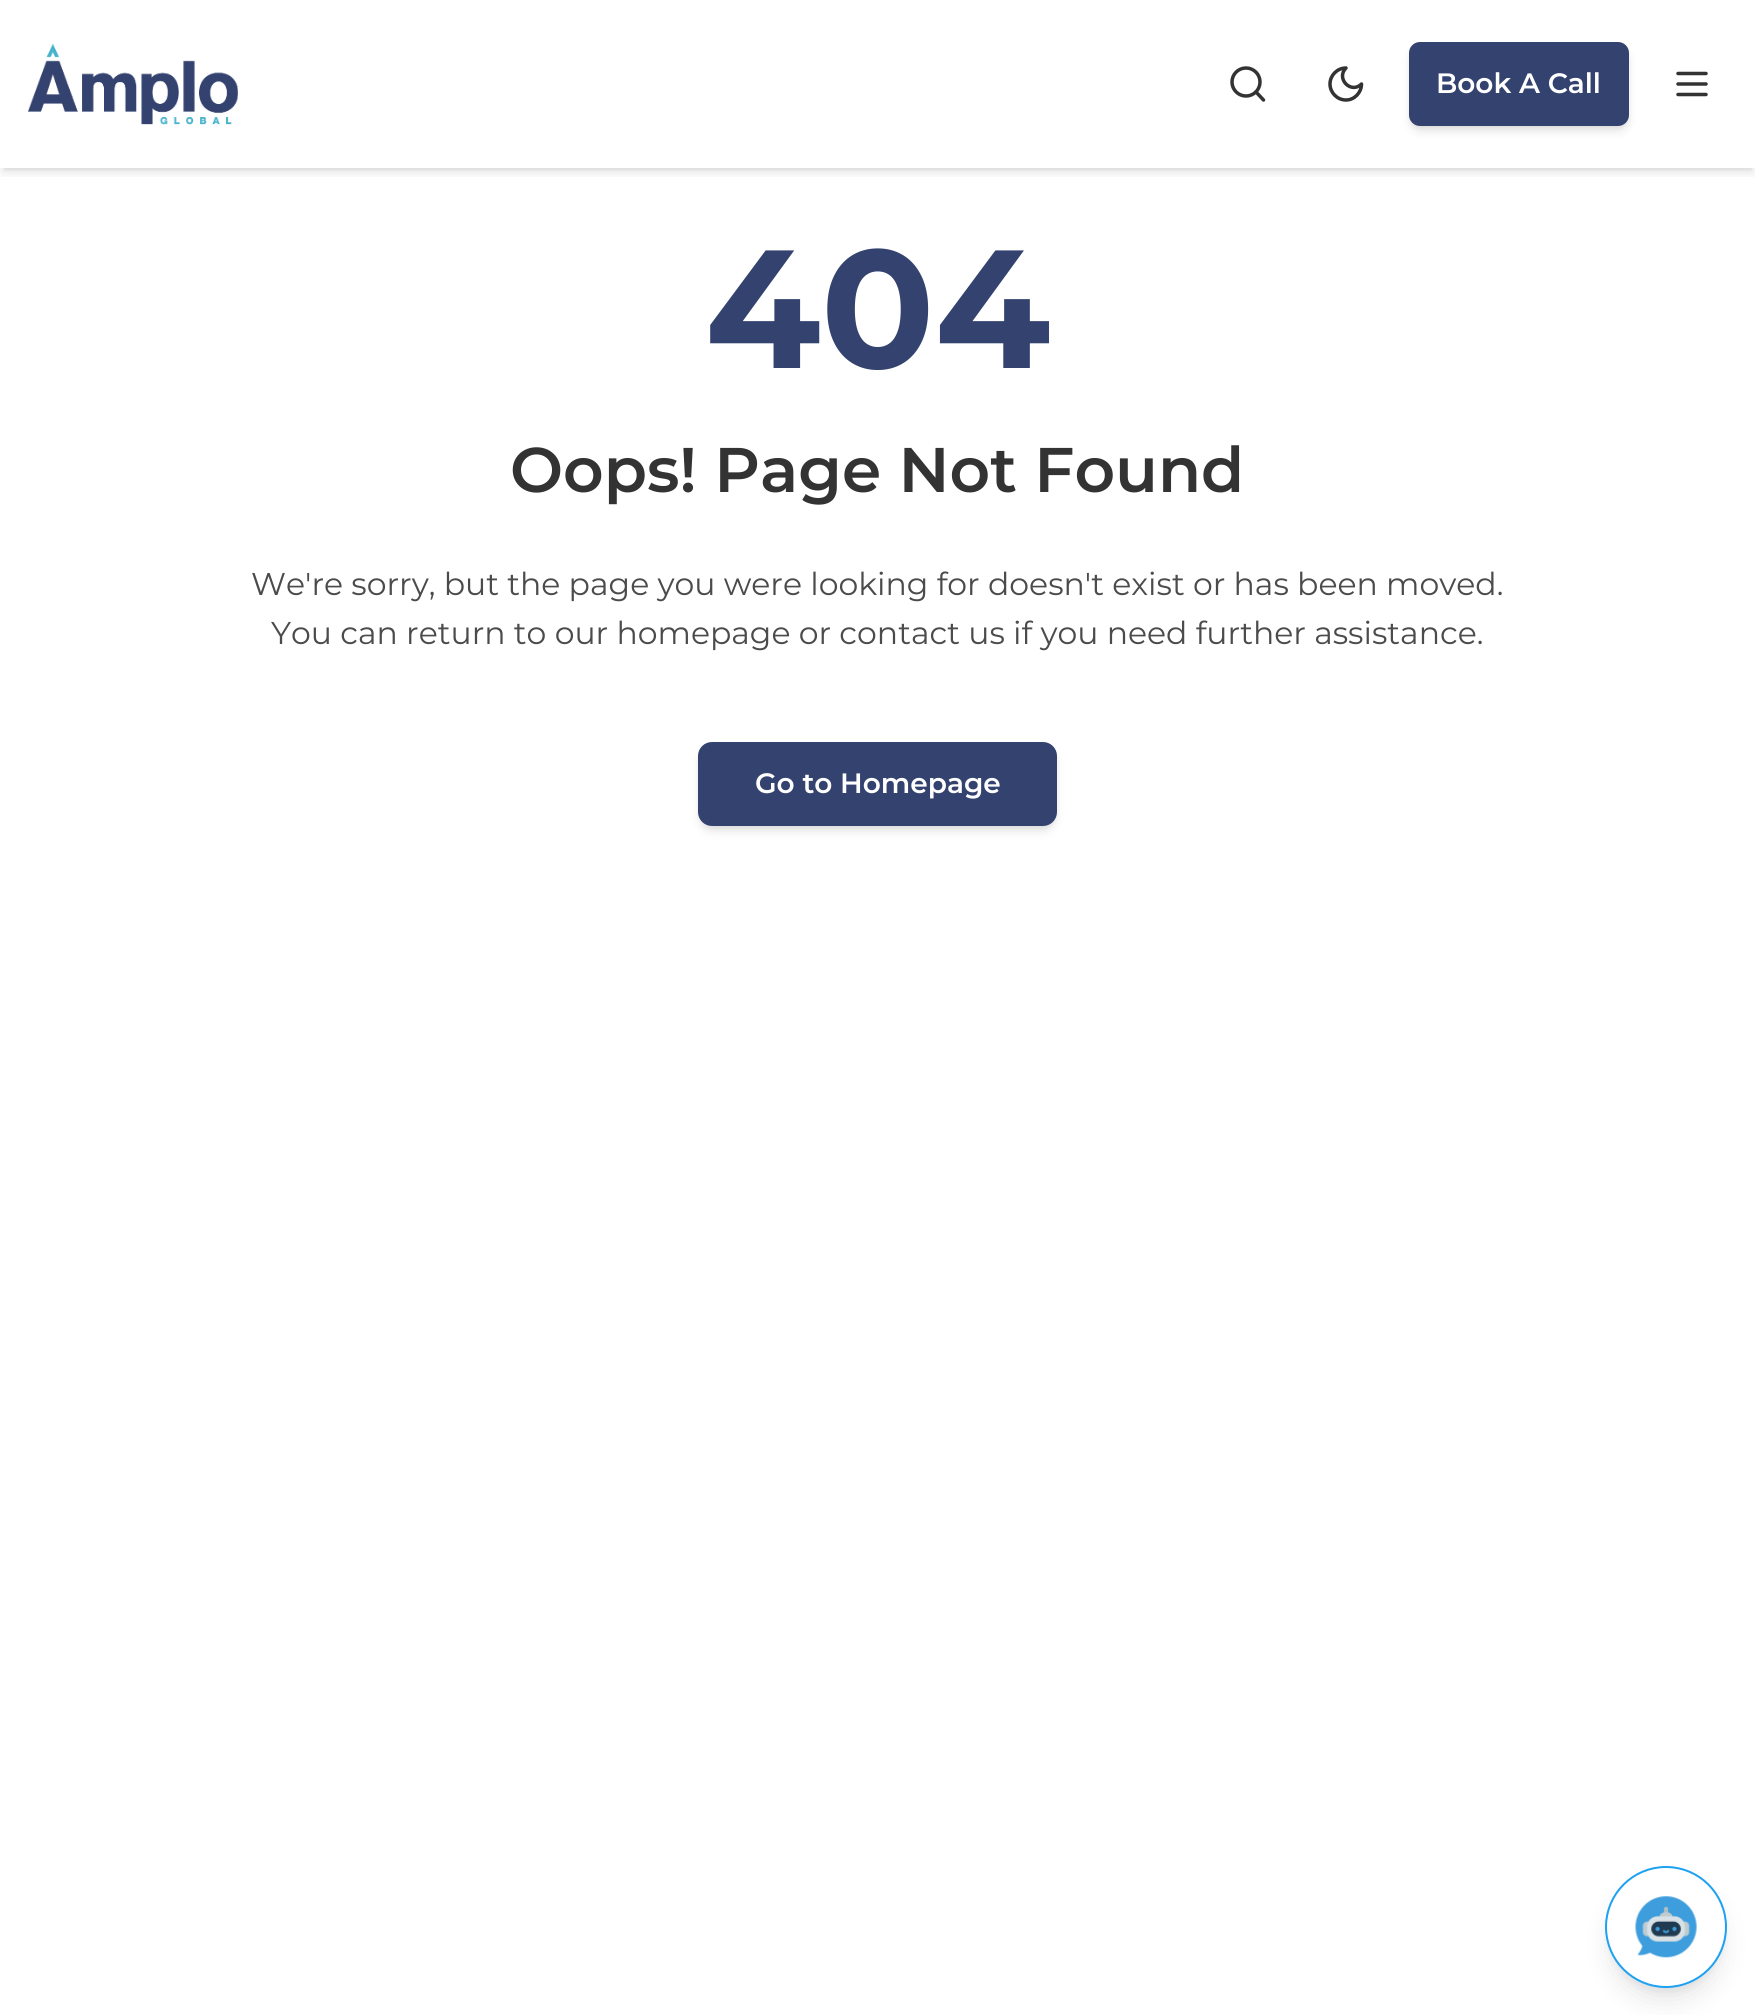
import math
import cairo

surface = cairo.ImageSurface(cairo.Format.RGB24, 1755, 2015)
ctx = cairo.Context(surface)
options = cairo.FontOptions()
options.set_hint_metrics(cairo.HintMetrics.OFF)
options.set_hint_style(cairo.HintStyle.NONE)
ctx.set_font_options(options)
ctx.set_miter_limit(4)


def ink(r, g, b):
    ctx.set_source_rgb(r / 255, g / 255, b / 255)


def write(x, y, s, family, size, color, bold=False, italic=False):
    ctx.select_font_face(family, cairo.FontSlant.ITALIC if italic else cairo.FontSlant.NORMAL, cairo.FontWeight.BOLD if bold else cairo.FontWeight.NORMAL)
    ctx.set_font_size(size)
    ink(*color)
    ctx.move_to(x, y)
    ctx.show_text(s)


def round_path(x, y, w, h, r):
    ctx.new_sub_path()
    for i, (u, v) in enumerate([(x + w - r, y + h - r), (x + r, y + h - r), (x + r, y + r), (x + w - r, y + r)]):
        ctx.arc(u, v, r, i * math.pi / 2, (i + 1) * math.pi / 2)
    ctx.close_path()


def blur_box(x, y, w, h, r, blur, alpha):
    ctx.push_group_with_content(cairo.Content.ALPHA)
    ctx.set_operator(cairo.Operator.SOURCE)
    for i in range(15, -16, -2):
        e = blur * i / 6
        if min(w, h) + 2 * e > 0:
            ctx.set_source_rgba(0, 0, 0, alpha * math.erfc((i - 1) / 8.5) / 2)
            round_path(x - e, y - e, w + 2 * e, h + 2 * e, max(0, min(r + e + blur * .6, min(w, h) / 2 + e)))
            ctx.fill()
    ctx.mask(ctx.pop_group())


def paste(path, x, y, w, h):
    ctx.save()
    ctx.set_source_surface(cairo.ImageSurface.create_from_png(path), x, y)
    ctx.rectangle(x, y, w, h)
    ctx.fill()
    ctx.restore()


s1 = dict(family="Montserrat SemiBold", size=28, color=(255, 255, 255))
s2 = dict(family="Montserrat", size=168, color=(51, 66, 110), bold=True)
s3 = dict(family="Montserrat SemiBold", size=63, color=(51, 51, 51))
s4 = dict(family="Montserrat", size=31.5, color=(75, 75, 75))

ink(255, 255, 255)
ctx.paint()
ctx.save()
ctx.rectangle(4, 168, 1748, 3)
ctx.clip()
ink(0, 0, 0)
blur_box(4, 7, 1748, 161, 0, 3.5, 0.1)
ctx.restore()
ctx.save()
ctx.rectangle(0, 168, 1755, 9)
ctx.clip()
ink(0, 0, 0)
blur_box(2, 9, 1752, 164, 0, 5, 0.1)
ctx.restore()
paste("pic1.png", 28, 43, 210, 82)
ctx.arc(1246, 82, 14, 0, 2 * math.pi)
ink(51, 51, 51)
ctx.set_line_width(3.5)
ctx.stroke()
ctx.new_path()
ctx.move_to(1263.5, 100)
ctx.line_to(1256, 92)
ctx.set_line_cap(cairo.LineCap.ROUND)
ctx.set_line_join(cairo.LineJoin.ROUND)
ctx.stroke()
ctx.new_path()
ctx.move_to(1346, 68)
ctx.curve_to(1335.5, 78.5, 1351, 94.5, 1361.5, 84)
ctx.curve_to(1361.5, 92.5, 1354.5, 100, 1346, 100)
ctx.curve_to(1337, 100, 1330, 92.5, 1330, 84)
ctx.curve_to(1330, 75.5, 1337, 68, 1346, 68)
ctx.close_path()
ctx.stroke()
ink(0, 0, 0)
blur_box(1412, 49, 214, 77, 7, 3.5, 0.1)
blur_box(1411, 51, 217, 80, 9, 5, 0.1)
ink(51, 66, 110)
round_path(1409, 42, 220, 84, 11)
ctx.fill()
write(1436, 93, "Book A Call", **s1)
ctx.new_path()
ctx.move_to(1678, 73.5)
ctx.line_to(1706, 73.5)
ctx.move_to(1678, 84)
ctx.line_to(1706, 84)
ctx.move_to(1678, 94.5)
ctx.line_to(1706, 94.5)
ink(51, 51, 51)
ctx.stroke()
write(705, 368, "404", **s2)
write(510, 492, "Oops! Page Not Found", **s3)
write(251, 595, "We're sorry, but the page you were looking for doesn't exist or has been moved.", **s4)
write(271, 644, "You can return to our homepage or contact us if you need further assistance.", **s4)
ink(0, 0, 0)
blur_box(702, 749, 352, 77, 11, 3.5, 0.1)
blur_box(700, 751, 355, 80, 12, 5, 0.1)
ink(51, 66, 110)
round_path(698, 742, 359, 84, 14)
ctx.fill()
write(755, 793, "Go to Homepage", **s1)
ink(0, 0, 0)
blur_box(1612, 1880, 108, 108, 54, 5, 0.1)
blur_box(1610, 1888, 112, 112, 56, 13, 0.1)
ink(255, 255, 255)
ctx.arc(1666, 1927, 60, 0, 2 * math.pi)
ctx.fill_preserve()
ink(29, 161, 242)
ctx.set_line_width(2)
ctx.set_line_cap(cairo.LineCap.BUTT)
ctx.set_line_join(cairo.LineJoin.MITER)
ctx.stroke()
paste("pic2.png", 1635, 1896, 62, 62)
surface.write_to_png("screenshot.png")
